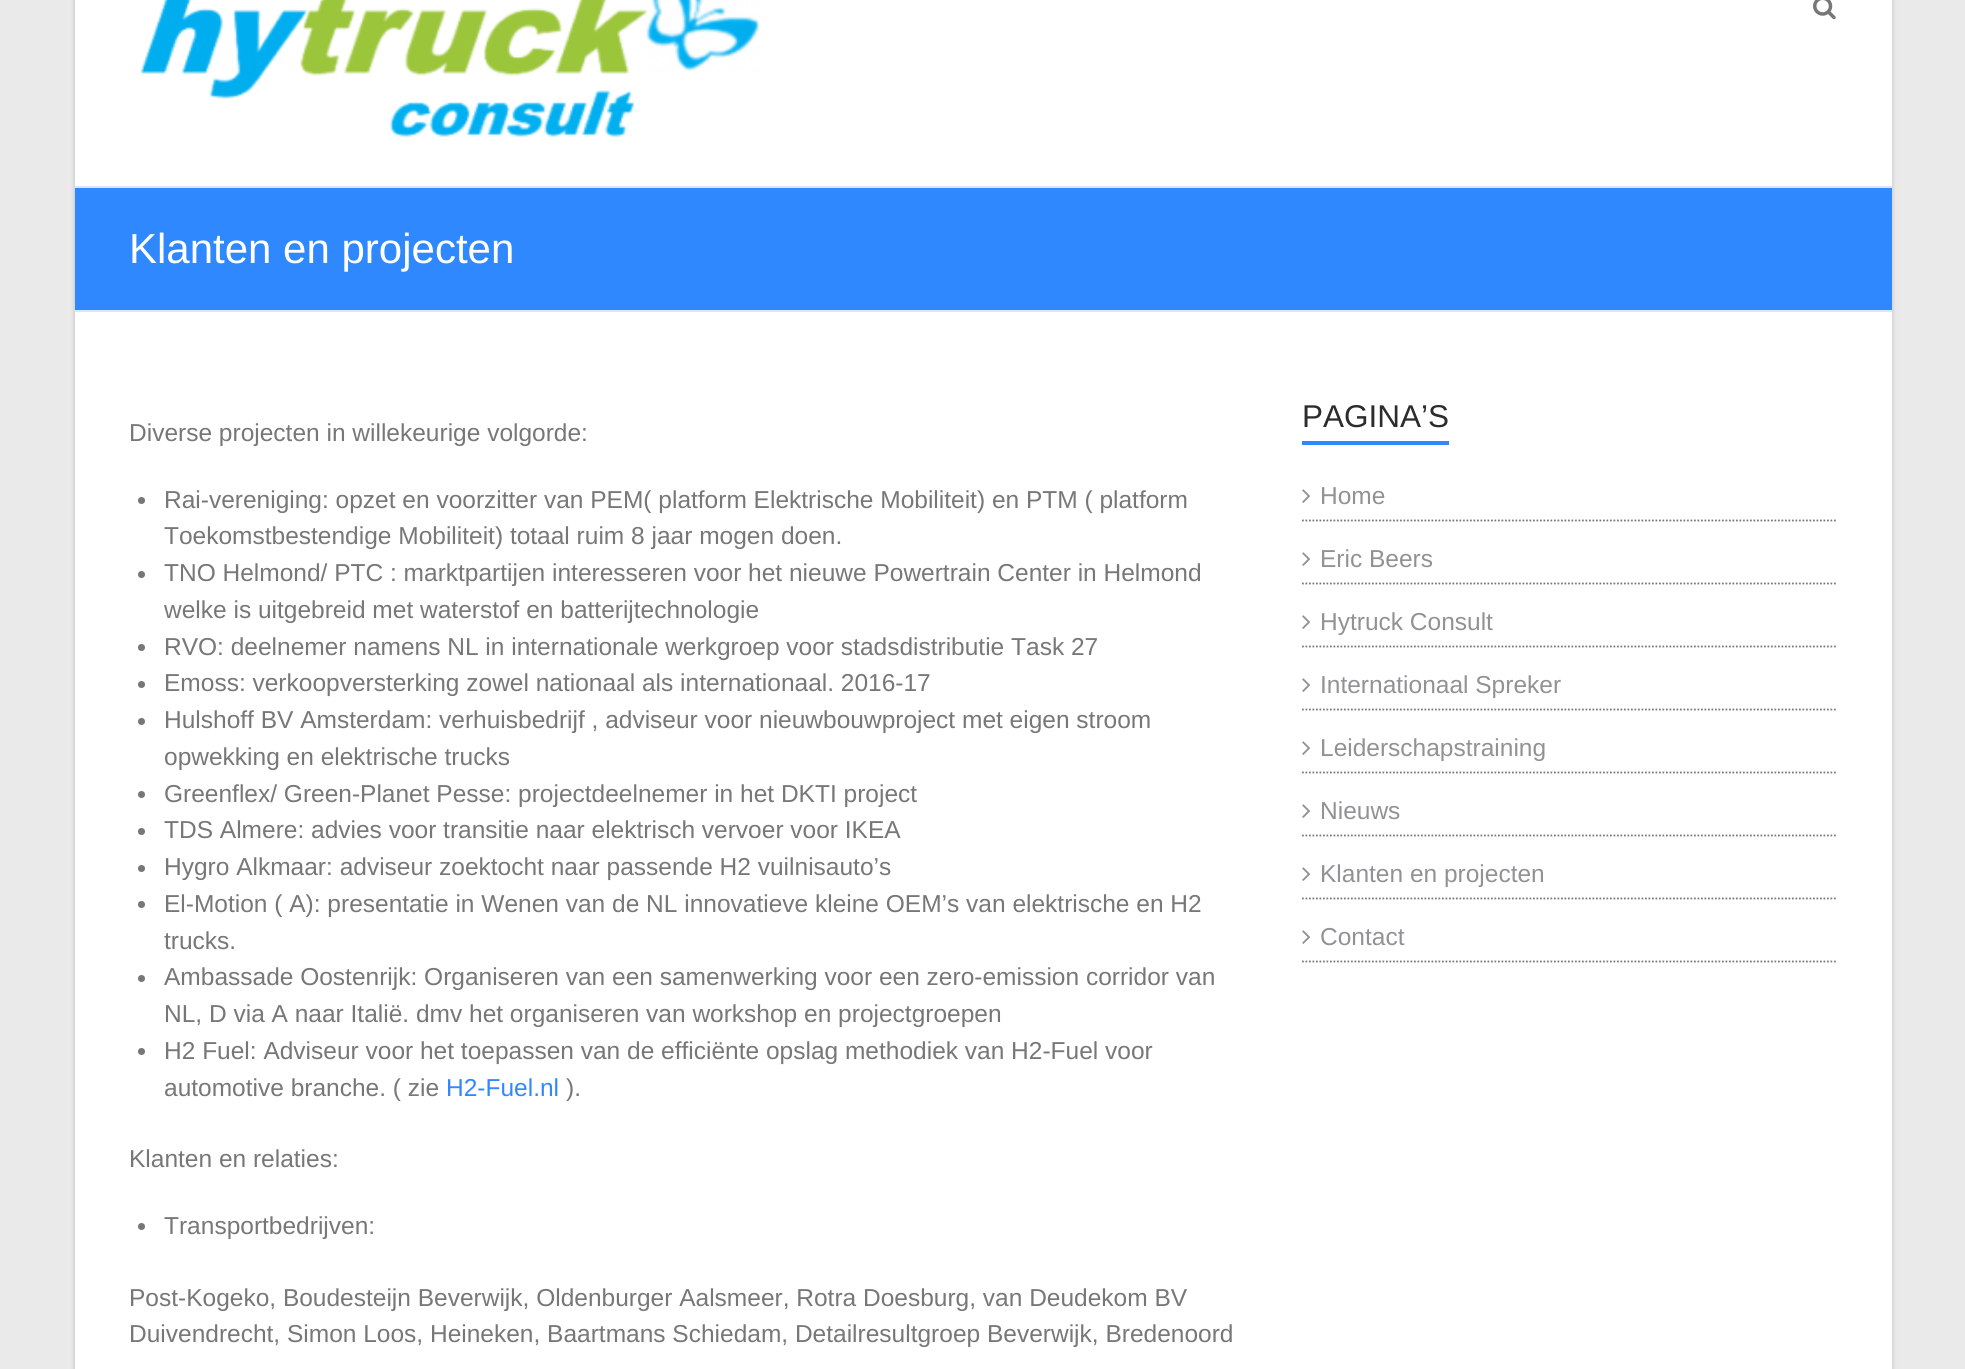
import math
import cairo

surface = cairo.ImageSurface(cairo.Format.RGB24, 1965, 1369)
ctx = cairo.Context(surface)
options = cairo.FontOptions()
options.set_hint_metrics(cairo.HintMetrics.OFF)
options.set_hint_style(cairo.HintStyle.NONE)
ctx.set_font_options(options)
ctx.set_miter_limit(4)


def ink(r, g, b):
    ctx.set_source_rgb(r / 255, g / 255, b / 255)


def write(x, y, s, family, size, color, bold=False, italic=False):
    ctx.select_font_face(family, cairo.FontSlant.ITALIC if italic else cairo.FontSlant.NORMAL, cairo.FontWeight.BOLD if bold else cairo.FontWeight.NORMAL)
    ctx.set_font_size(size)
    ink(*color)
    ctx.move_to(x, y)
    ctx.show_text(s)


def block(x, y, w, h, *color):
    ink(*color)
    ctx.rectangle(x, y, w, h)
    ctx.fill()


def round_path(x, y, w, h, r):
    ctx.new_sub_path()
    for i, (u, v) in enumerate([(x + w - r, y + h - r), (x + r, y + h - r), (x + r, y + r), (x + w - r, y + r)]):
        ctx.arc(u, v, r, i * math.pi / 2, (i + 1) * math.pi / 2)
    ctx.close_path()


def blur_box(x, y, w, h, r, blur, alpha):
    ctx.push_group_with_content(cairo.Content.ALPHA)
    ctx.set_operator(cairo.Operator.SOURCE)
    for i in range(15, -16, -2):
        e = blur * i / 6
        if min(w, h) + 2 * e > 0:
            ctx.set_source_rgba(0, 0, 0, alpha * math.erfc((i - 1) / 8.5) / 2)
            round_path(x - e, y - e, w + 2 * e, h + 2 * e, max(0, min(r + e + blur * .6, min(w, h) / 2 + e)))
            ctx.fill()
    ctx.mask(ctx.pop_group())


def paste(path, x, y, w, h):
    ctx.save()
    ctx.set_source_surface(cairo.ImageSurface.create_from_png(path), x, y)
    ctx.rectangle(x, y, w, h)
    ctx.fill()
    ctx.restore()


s1 = dict(family="Liberation Sans", size=42, color=(255, 255, 255))
s2 = dict(family="Liberation Sans", size=24.5, color=(119, 119, 119))
s3 = dict(family="Liberation Sans", size=24.5, color=(48, 136, 255))
s4 = dict(family="Liberation Sans", size=31.5, color=(44, 44, 44))
s5 = dict(family="Liberation Sans", size=24.5, color=(144, 146, 148))

ink(234, 234, 234)
ctx.paint()
ink(0, 0, 0)
blur_box(75, -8, 1817, 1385, 0, 2.5, 0.2)
block(75, 0, 1817, 1369, 255, 255, 255)
paste("pic1.png", 140, 0, 620, 137)
paste("pic2.png", 1813, 0, 23, 20)
block(75, 188, 1817, 122, 48, 136, 255)
block(75, 186, 1817, 2, 214, 231, 255)
block(75, 310, 1817, 2, 214, 231, 255)
write(129, 263, "Klanten en projecten", **s1)
write(129, 441, "Diverse projecten in willekeurige volgorde:", **s2)
ctx.new_path()
ctx.arc(141.5, 500.5, 3.5, 0, 2 * math.pi)
ctx.fill()
write(164, 508, "Rai-vereniging: opzet en voorzitter van PEM( platform Elektrische Mobiliteit) en PTM ( platform", **s2)
write(164, 544, "Toekomstbestendige Mobiliteit) totaal ruim 8 jaar mogen doen.", **s2)
ctx.new_path()
ctx.arc(141.5, 574.5, 3.5, 0, 2 * math.pi)
ctx.fill()
write(164, 581, "TNO Helmond/ PTC : marktpartijen interesseren voor het nieuwe Powertrain Center in Helmond", **s2)
write(164, 618, "welke is uitgebreid met waterstof en batterijtechnologie", **s2)
ctx.new_path()
ctx.arc(141.5, 647.5, 3.5, 0, 2 * math.pi)
ctx.fill()
write(164, 655, "RVO: deelnemer namens NL in internationale werkgroep voor stadsdistributie Task 27", **s2)
ctx.new_path()
ctx.arc(141.5, 684.5, 3.5, 0, 2 * math.pi)
ctx.fill()
write(164, 691, "Emoss: verkoopversterking zowel nationaal als internationaal. 2016-17", **s2)
ctx.new_path()
ctx.arc(141.5, 721.5, 3.5, 0, 2 * math.pi)
ctx.fill()
write(164, 728, "Hulshoff BV Amsterdam: verhuisbedrijf , adviseur voor nieuwbouwproject met eigen stroom", **s2)
write(164, 765, "opwekking en elektrische trucks", **s2)
ctx.new_path()
ctx.arc(141.5, 794.5, 3.5, 0, 2 * math.pi)
ctx.fill()
write(164, 802, "Greenflex/ Green-Planet Pesse: projectdeelnemer in het DKTI project", **s2)
ctx.new_path()
ctx.arc(141.5, 831.5, 3.5, 0, 2 * math.pi)
ctx.fill()
write(164, 838, "TDS Almere: advies voor transitie naar elektrisch vervoer voor IKEA", **s2)
ctx.new_path()
ctx.arc(141.5, 868.5, 3.5, 0, 2 * math.pi)
ctx.fill()
write(164, 875, "Hygro Alkmaar: adviseur zoektocht naar passende H2 vuilnisauto’s", **s2)
ctx.new_path()
ctx.arc(141.5, 904.5, 3.5, 0, 2 * math.pi)
ctx.fill()
write(164, 912, "El-Motion ( A): presentatie in Wenen van de NL innovatieve kleine OEM’s van elektrische en H2", **s2)
write(164, 949, "trucks.", **s2)
ctx.new_path()
ctx.arc(141.5, 978.5, 3.5, 0, 2 * math.pi)
ctx.fill()
write(164, 985, "Ambassade Oostenrijk: Organiseren van een samenwerking voor een zero-emission corridor van", **s2)
write(164, 1022, "NL, D via A naar Italië. dmv het organiseren van workshop en projectgroepen", **s2)
ctx.new_path()
ctx.arc(141.5, 1051.5, 3.5, 0, 2 * math.pi)
ctx.fill()
write(164, 1059, "H2 Fuel: Adviseur voor het toepassen van de efficiënte opslag methodiek van H2-Fuel voor", **s2)
write(164, 1096, "automotive branche. ( zie", **s2)
write(446, 1096, "H2-Fuel.nl", **s3)
write(566, 1096, ").", **s2)
write(129, 1167, "Klanten en relaties:", **s2)
ctx.new_path()
ctx.arc(141.5, 1226.5, 3.5, 0, 2 * math.pi)
ctx.fill()
write(164, 1234, "Transportbedrijven:", **s2)
write(129, 1306, "Post-Kogeko, Boudesteijn Beverwijk, Oldenburger Aalsmeer, Rotra Doesburg, van Deudekom BV", **s2)
write(129, 1342, "Duivendrecht, Simon Loos, Heineken, Baartmans Schiedam, Detailresultgroep Beverwijk, Bredenoord", **s2)
write(1302, 427, "PAGINA’S", **s4)
block(1302, 441, 147, 4, 48, 136, 255)
ctx.new_path()
ctx.move_to(1302, 520.5)
ctx.line_to(1836, 520.5)
ink(119, 119, 119)
ctx.set_line_width(1.8)
ctx.set_dash([1.75, 1.75])
ctx.stroke()
paste("pic3.png", 1302, 489, 8, 14)
write(1320, 504, "Home", **s5)
ctx.new_path()
ctx.move_to(1302, 583.5)
ctx.line_to(1836, 583.5)
ink(119, 119, 119)
ctx.stroke()
paste("pic3.png", 1302, 552, 8, 14)
write(1320, 567, "Eric Beers", **s5)
ctx.new_path()
ctx.move_to(1302, 646.5)
ctx.line_to(1836, 646.5)
ink(119, 119, 119)
ctx.stroke()
paste("pic3.png", 1302, 615, 8, 14)
write(1320, 630, "Hytruck Consult", **s5)
ctx.new_path()
ctx.move_to(1302, 709.5)
ctx.line_to(1836, 709.5)
ink(119, 119, 119)
ctx.stroke()
paste("pic3.png", 1302, 678, 8, 14)
write(1320, 693, "Internationaal Spreker", **s5)
ctx.new_path()
ctx.move_to(1302, 772.5)
ctx.line_to(1836, 772.5)
ink(119, 119, 119)
ctx.stroke()
paste("pic3.png", 1302, 741, 8, 14)
write(1320, 756, "Leiderschapstraining", **s5)
ctx.new_path()
ctx.move_to(1302, 835.5)
ctx.line_to(1836, 835.5)
ink(119, 119, 119)
ctx.stroke()
paste("pic3.png", 1302, 804, 8, 14)
write(1320, 819, "Nieuws", **s5)
ctx.new_path()
ctx.move_to(1302, 898.5)
ctx.line_to(1836, 898.5)
ink(119, 119, 119)
ctx.stroke()
paste("pic3.png", 1302, 867, 8, 14)
write(1320, 882, "Klanten en projecten", **s5)
ctx.new_path()
ctx.move_to(1302, 961.5)
ctx.line_to(1836, 961.5)
ink(119, 119, 119)
ctx.stroke()
paste("pic3.png", 1302, 930, 8, 14)
write(1320, 945, "Contact", **s5)
surface.write_to_png("screenshot.png")
